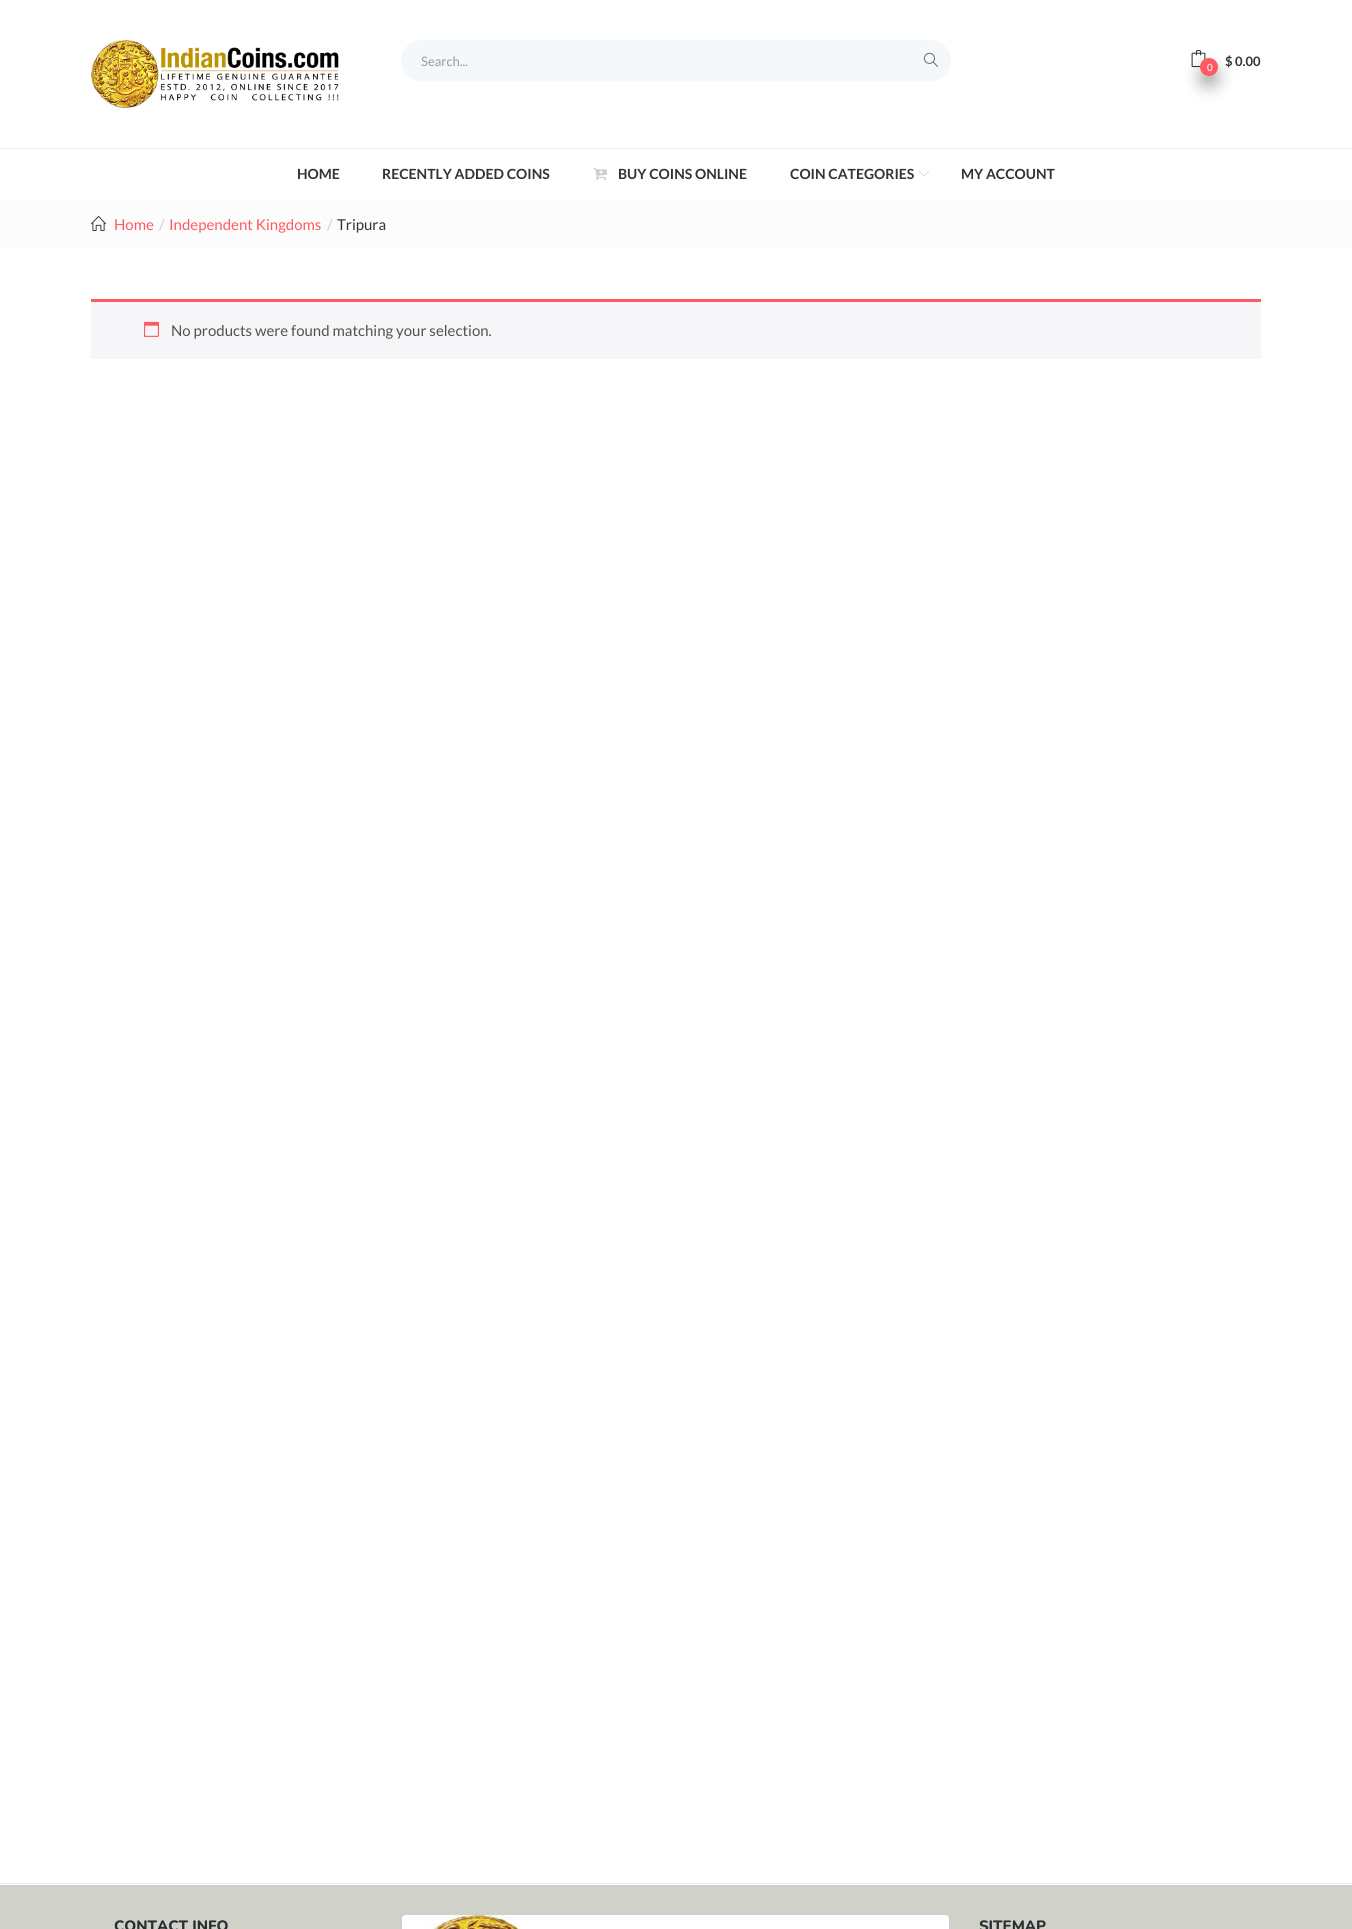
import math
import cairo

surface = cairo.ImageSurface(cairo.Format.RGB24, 1352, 1929)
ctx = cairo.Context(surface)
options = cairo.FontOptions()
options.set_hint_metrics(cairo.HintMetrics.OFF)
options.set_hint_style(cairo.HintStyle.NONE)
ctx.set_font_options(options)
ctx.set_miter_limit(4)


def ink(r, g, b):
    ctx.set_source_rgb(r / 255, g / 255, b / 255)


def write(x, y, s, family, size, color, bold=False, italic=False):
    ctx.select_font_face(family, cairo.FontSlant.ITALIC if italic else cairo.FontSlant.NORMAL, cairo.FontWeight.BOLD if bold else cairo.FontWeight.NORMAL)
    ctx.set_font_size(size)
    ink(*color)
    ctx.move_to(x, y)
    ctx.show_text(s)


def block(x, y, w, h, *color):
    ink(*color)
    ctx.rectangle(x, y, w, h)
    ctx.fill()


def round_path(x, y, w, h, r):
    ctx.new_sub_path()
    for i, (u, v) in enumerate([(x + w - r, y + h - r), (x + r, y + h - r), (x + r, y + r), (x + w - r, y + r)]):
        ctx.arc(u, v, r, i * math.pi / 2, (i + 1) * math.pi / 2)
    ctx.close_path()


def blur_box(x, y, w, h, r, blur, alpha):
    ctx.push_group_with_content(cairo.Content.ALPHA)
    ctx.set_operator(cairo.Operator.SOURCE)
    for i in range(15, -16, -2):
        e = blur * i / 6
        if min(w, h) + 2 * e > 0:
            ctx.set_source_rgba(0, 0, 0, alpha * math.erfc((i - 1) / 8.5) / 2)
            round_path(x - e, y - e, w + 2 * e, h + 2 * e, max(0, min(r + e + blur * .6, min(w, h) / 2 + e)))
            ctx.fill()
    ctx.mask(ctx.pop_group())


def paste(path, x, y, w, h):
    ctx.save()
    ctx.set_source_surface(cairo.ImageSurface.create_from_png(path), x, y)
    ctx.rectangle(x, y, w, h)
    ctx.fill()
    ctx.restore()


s1 = dict(family="Lato", size=13, color=(153, 153, 153))
s2 = dict(family="Lato", size=10, color=(255, 255, 255))
s3 = dict(family="Lato", size=13, color=(51, 51, 51), bold=True)
s4 = dict(family="Lato", size=14, color=(51, 51, 51), bold=True)
s5 = dict(family="Lato", size=15, color=(255, 89, 100))
s6 = dict(family="Lato", size=15, color=(204, 204, 204))
s7 = dict(family="Lato", size=15, color=(51, 51, 51))
s8 = dict(family="Lato", size=15, color=(81, 81, 81))
s9 = dict(family="Nunito ExtraBold", size=15, color=(41, 46, 49))

ink(255, 255, 255)
ctx.paint()
paste("pic1.png", 91, 40, 248, 68)
ink(244, 248, 251)
round_path(401, 40, 550, 41, 20.5)
ctx.fill()
write(421, 66, "Search...", **s1)
paste("pic2.png", 924, 52, 14, 15)
paste("pic3.png", 1191, 50, 15, 18)
ink(0, 0, 0)
blur_box(1200, 68, 18, 18, 9, 8, 0.3)
ink(255, 89, 100)
ctx.arc(1209, 67, 9, 0, 2 * math.pi)
ctx.fill()
write(1207, 71, "0", **s2)
write(1225, 66, "$ 0.00", **s3)
block(0, 148, 1352, 1, 238, 238, 238)
write(297, 179, "HOME", **s4)
write(382, 179, "RECENTLY ADDED COINS", **s4)
paste("pic4.png", 593, 168, 14, 12)
write(618, 179, "BUY COINS ONLINE", **s4)
write(790, 179, "COIN CATEGORIES", **s4)
paste("pic5.png", 919, 171, 10, 6)
write(961, 179, "MY ACCOUNT", **s4)
block(0, 199, 1352, 50, 252, 252, 252)
paste("pic6.png", 91, 216, 15, 15)
write(114, 230, "Home", **s5)
write(159, 230, "/", **s6)
write(169, 230, "Independent Kingdoms", **s5)
write(327, 230, "/", **s6)
write(337, 230, "Tripura", **s7)
block(91, 302, 1170, 57, 246, 245, 248)
block(91, 299, 1170, 3, 255, 89, 100)
paste("pic7.png", 144, 321, 15, 16)
write(171, 336, "No products were found matching your selection.", **s8)
block(0, 1883, 1352, 1, 238, 238, 238)
block(0, 1885, 1352, 44, 208, 209, 201)
write(114, 1931, "CONTACT INFO", **s9)
paste("pic8.png", 402, 1915, 547, 14)
write(979, 1931, "SITEMAP", **s9)
surface.write_to_png("screenshot.png")
